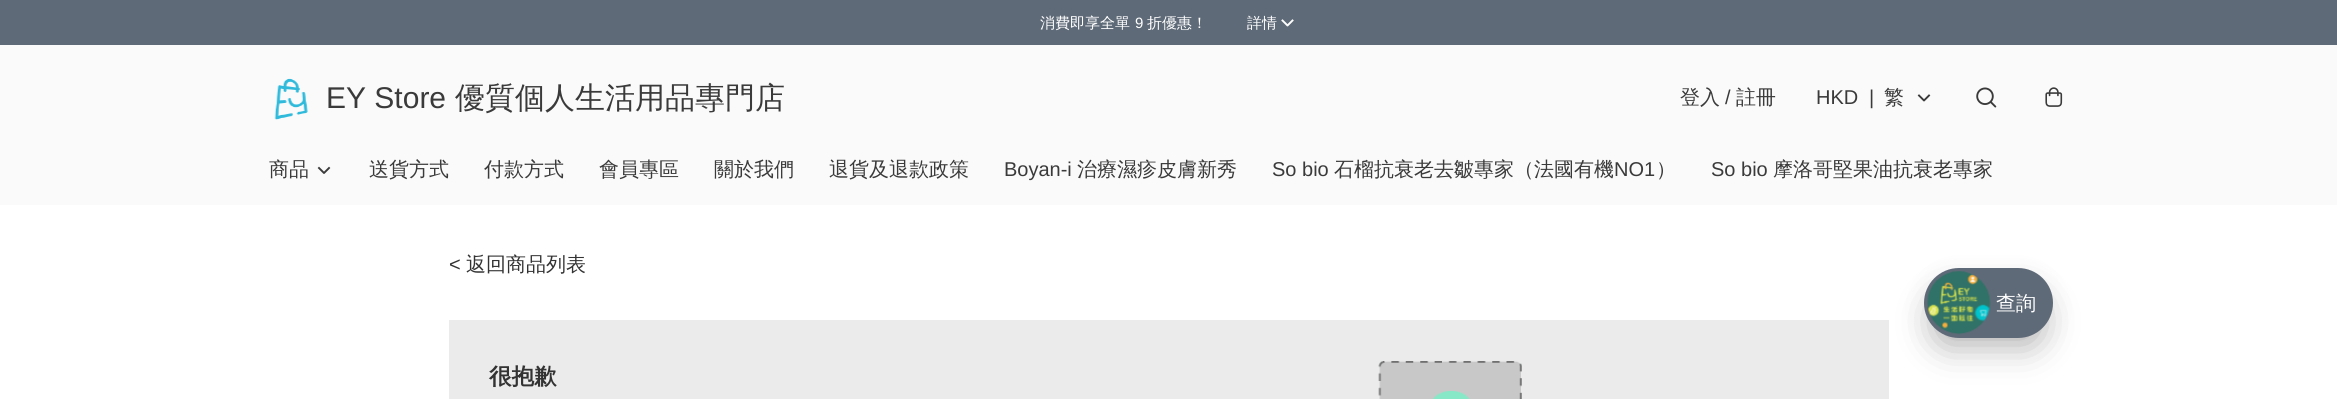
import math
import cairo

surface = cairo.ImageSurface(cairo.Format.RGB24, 2337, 399)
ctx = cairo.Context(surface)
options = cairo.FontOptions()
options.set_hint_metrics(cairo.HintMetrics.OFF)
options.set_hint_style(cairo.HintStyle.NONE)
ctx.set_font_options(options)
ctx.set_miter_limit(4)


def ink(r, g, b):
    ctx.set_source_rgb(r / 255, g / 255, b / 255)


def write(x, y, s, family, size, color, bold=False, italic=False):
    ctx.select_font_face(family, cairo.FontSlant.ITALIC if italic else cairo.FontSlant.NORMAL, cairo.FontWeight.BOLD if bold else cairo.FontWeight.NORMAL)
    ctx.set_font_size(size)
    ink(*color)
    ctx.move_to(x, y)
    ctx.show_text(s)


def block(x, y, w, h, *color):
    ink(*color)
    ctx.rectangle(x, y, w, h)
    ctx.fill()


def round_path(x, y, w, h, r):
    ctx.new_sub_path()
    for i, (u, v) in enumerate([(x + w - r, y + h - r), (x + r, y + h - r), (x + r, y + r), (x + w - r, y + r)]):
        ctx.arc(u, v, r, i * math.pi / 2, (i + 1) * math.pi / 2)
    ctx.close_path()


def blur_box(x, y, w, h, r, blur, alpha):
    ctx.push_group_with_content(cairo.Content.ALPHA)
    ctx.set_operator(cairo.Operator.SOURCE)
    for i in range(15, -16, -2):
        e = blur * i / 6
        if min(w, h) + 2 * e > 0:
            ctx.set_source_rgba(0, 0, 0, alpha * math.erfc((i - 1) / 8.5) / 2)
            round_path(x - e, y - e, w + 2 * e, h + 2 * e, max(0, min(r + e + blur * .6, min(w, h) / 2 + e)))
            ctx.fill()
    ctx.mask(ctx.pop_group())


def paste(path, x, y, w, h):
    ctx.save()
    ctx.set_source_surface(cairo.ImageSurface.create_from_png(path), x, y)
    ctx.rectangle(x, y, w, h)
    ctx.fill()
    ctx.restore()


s1 = dict(family="WenQuanYi Zen Hei Medium", size=15, color=(255, 255, 255))
s2 = dict(family="Liberation Sans", size=15, color=(255, 255, 255))
s3 = dict(family="Liberation Sans", size=30, color=(58, 58, 58))
s4 = dict(family="WenQuanYi Zen Hei Medium", size=30, color=(58, 58, 58))
s5 = dict(family="WenQuanYi Zen Hei Medium", size=20, color=(58, 58, 58))
s6 = dict(family="Liberation Sans", size=20, color=(58, 58, 58))
s7 = dict(family="Liberation Sans", size=20, color=(51, 51, 51))
s8 = dict(family="WenQuanYi Zen Hei Medium", size=20, color=(51, 51, 51))
s9 = dict(family="WenQuanYi Zen Hei", size=22.5, color=(51, 51, 51), bold=True)
s10 = dict(family="WenQuanYi Zen Hei Medium", size=20, color=(255, 255, 255))

ink(255, 255, 255)
ctx.paint()
block(0, 0, 2337, 45, 95, 106, 120)
write(1040, 28, "消費即享全單", **s1)
write(1135, 28, "9", **s2)
write(1147, 28, "折優惠！", **s1)
write(1247, 28, "詳情", **s1)
ctx.new_path()
ctx.move_to(1282.5, 20.5)
ctx.line_to(1287.5, 25.5)
ctx.line_to(1292.5, 20.5)
ctx.set_line_width(1.9)
ctx.set_line_cap(cairo.LineCap.SQUARE)
ctx.set_line_join(cairo.LineJoin.ROUND)
ctx.stroke()
block(0, 45, 2337, 160, 250, 250, 250)
paste("pic1.png", 274, 78, 34, 42)
write(326, 108, "EY Store", **s3)
write(455, 108, "優質個人生活用品專門店", **s4)
write(1680, 104, "登入", **s5)
write(1725, 104, "/", **s6)
write(1736, 104, "註冊", **s5)
write(1816, 104, "HKD", **s6)
write(1869, 104, "|", **s6)
write(1884, 104, "繁", **s5)
ctx.new_path()
ctx.move_to(1919, 95.5)
ctx.line_to(1924, 100.5)
ctx.line_to(1929, 95.5)
ctx.stroke()
paste("pic2.png", 1976, 87, 21, 21)
paste("pic3.png", 2045, 87, 18, 20)
write(269, 176, "商品", **s5)
ctx.new_path()
ctx.move_to(319, 168)
ctx.line_to(324, 173)
ctx.line_to(329, 168)
ctx.stroke()
write(369, 176, "送貨方式", **s5)
write(484, 176, "付款方式", **s5)
write(599, 176, "會員專區", **s5)
write(714, 176, "關於我們", **s5)
write(829, 176, "退貨及退款政策", **s5)
write(1004, 176, "Boyan-i", **s6)
write(1077, 176, "治療濕疹皮膚新秀", **s5)
write(1272, 176, "So bio", **s6)
write(1334, 176, "石榴抗衰老去皺專家（法國有機", **s5)
write(1614, 176, "NO1", **s6)
write(1656, 176, "）", **s5)
write(1711, 176, "So bio", **s6)
write(1773, 176, "摩洛哥堅果油抗衰老專家", **s5)
write(449, 271, "<", **s7)
write(466, 271, "返回商品列表", **s8)
block(449, 320, 1440, 79, 235, 235, 235)
write(489, 384, "很抱歉", **s9)
paste("pic4.png", 1378, 361, 144, 38)
ink(0, 0, 0)
blur_box(1936, 299, 104, 45, 22.5, 19, 0.3)
blur_box(1924, 274, 129, 70, 35, 12.5, 0.05)
ink(95, 106, 120)
round_path(1924, 268, 129, 70, 35)
ctx.fill()
paste("pic5.png", 1927, 271, 64, 64)
write(1996, 310, "查詢", **s10)
surface.write_to_png("screenshot.png")
